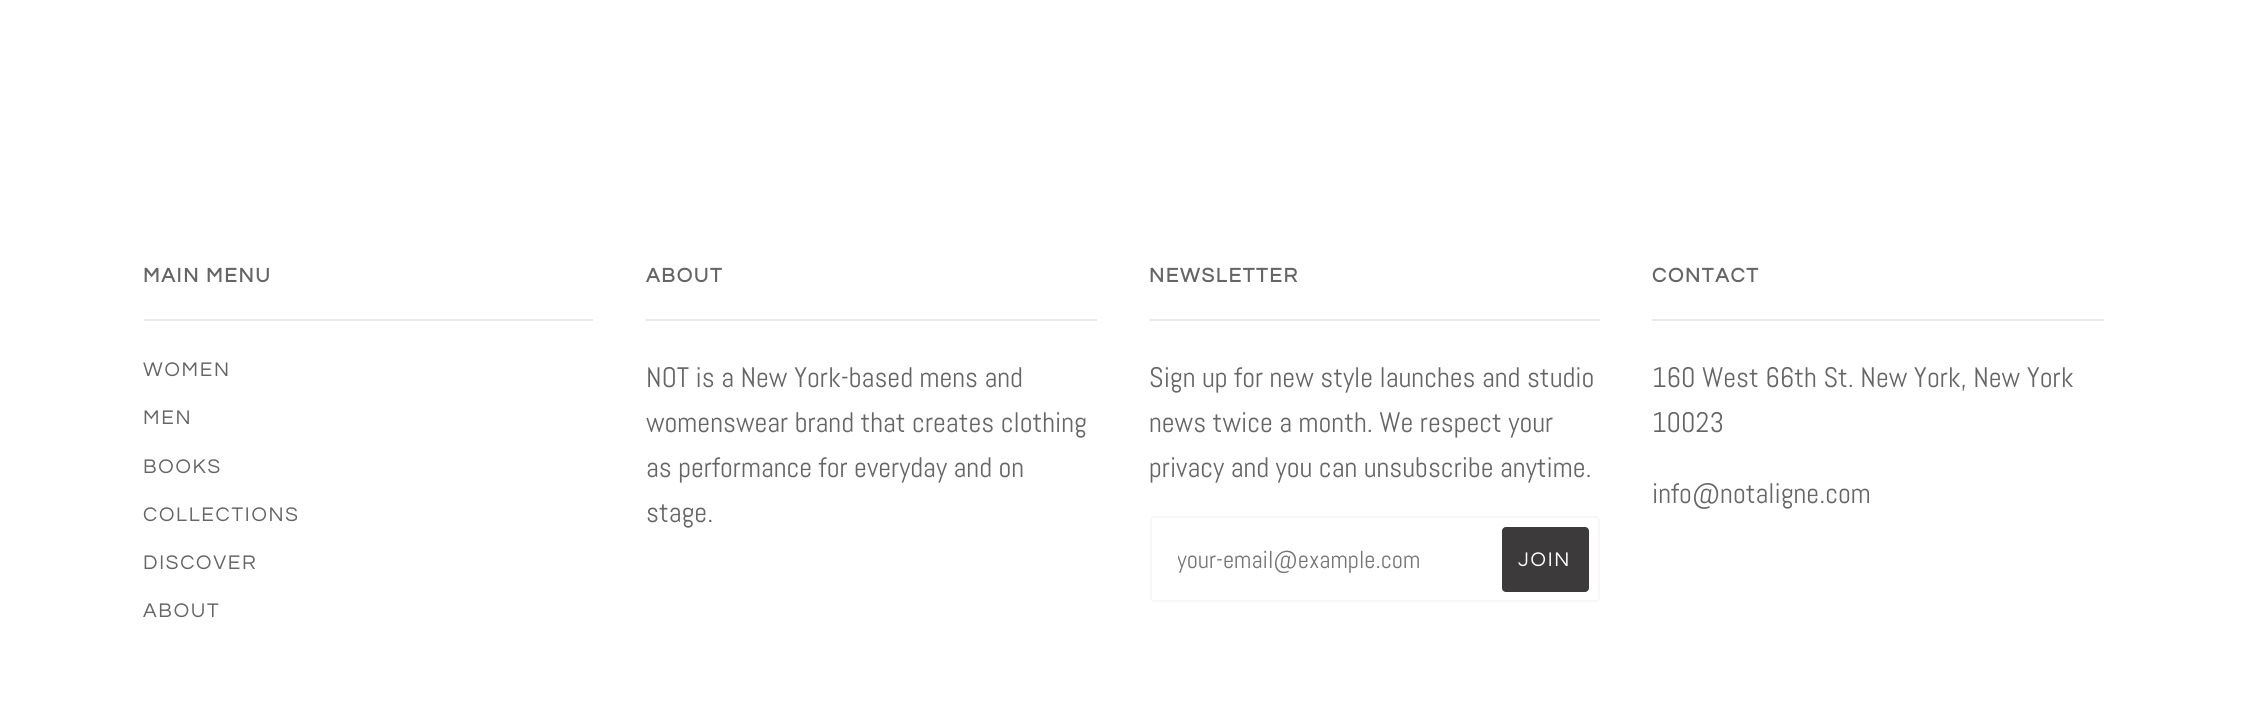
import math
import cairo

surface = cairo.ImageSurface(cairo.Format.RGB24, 2244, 709)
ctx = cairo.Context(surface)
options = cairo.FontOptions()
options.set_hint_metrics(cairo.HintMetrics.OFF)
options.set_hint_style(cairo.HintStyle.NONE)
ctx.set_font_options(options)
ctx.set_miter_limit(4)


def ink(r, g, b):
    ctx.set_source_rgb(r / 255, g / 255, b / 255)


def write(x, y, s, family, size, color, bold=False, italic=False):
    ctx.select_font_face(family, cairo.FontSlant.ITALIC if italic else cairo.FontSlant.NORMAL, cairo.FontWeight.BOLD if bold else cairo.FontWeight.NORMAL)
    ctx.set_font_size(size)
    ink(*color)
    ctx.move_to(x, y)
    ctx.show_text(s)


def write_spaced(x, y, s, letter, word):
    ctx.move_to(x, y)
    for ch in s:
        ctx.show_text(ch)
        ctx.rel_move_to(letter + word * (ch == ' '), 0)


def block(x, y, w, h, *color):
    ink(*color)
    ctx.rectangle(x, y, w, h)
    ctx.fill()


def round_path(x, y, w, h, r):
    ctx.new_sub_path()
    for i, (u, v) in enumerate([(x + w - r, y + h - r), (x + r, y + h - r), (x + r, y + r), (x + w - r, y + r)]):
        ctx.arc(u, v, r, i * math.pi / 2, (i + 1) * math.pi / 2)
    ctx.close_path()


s1 = dict(family="Abel", size=28.2, color=(101, 101, 101))
s2 = dict(family="Abel", size=24.5, color=(117, 117, 117))

ink(255, 255, 255)
ctx.paint()
ctx.select_font_face("Questrial", cairo.FontSlant.NORMAL, cairo.FontWeight.BOLD)
ctx.set_font_size(20.5)
ink(101, 101, 101)
write_spaced(143, 282, "MAIN MENU", 1.75, 0)
block(144, 319, 449, 2, 232, 232, 232)
ctx.select_font_face("Questrial")
ink(101, 101, 101)
write_spaced(143, 376, "WOMEN", 1.75, 0)
write_spaced(143, 424, "MEN", 1.75, 0)
write_spaced(143, 473, "BOOKS", 1.75, 0)
write_spaced(143, 521, "COLLECTIONS", 1.75, 0)
write_spaced(143, 569, "DISCOVER", 1.75, 0)
write_spaced(143, 617, "ABOUT", 1.75, 0)
ctx.select_font_face("Questrial", cairo.FontSlant.NORMAL, cairo.FontWeight.BOLD)
write_spaced(646, 282, "ABOUT", 1.75, 0)
block(646, 319, 451, 2, 232, 232, 232)
write(646, 387, "NOT is a New York-based mens and", **s1)
write(646, 432, "womenswear brand that creates clothing", **s1)
write(646, 477, "as performance for everyday and on", **s1)
write(646, 522, "stage.", **s1)
ctx.select_font_face("Questrial", cairo.FontSlant.NORMAL, cairo.FontWeight.BOLD)
ctx.set_font_size(20.5)
write_spaced(1149, 282, "NEWSLETTER", 1.75, 0)
block(1150, 319, 450, 2, 232, 232, 232)
write(1149, 387, "Sign up for new style launches and studio", **s1)
write(1149, 432, "news twice a month. We respect your", **s1)
write(1149, 477, "privacy and you can unsubscribe anytime.", **s1)
round_path(1151, 517, 448, 84, 3)
ink(247, 247, 247)
ctx.stroke()
ctx.save()
ctx.rectangle(1178, 544, 306, 32)
ctx.clip()
write(1177, 568, "your-email@example.com", **s2)
ctx.restore()
ink(60, 58, 58)
round_path(1502, 527, 87, 65, 4)
ctx.fill()
ctx.select_font_face("Questrial")
ctx.set_font_size(20.5)
ink(255, 255, 255)
write_spaced(1518, 566, "JOIN", 1.75, 0)
ctx.select_font_face("Questrial", cairo.FontSlant.NORMAL, cairo.FontWeight.BOLD)
ink(101, 101, 101)
write_spaced(1652, 282, "CONTACT", 1.75, 0)
block(1652, 319, 452, 2, 232, 232, 232)
write(1652, 387, "160 West 66th St. New York, New York", **s1)
write(1652, 432, "10023", **s1)
write(1652, 503, "info@notaligne.com", **s1)
surface.write_to_png("screenshot.png")
